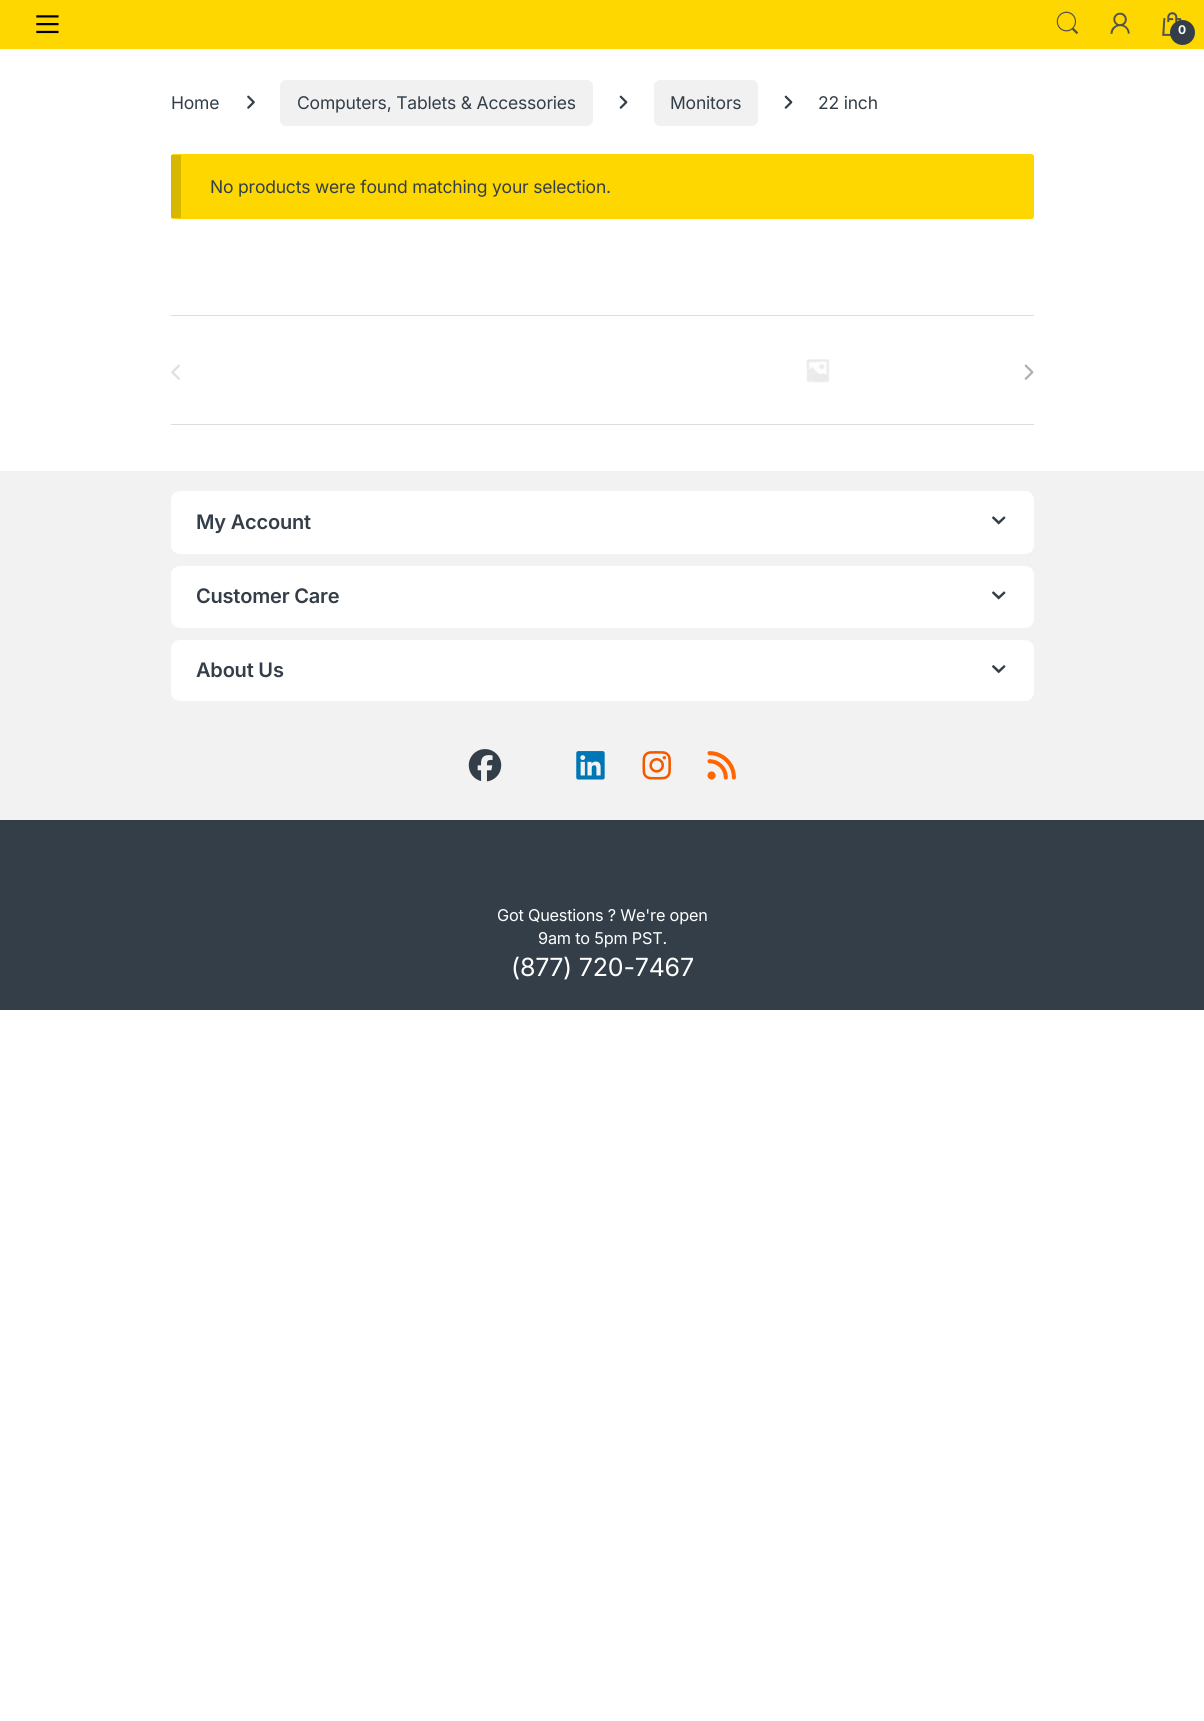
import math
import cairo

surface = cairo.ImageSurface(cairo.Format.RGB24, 1204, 1721)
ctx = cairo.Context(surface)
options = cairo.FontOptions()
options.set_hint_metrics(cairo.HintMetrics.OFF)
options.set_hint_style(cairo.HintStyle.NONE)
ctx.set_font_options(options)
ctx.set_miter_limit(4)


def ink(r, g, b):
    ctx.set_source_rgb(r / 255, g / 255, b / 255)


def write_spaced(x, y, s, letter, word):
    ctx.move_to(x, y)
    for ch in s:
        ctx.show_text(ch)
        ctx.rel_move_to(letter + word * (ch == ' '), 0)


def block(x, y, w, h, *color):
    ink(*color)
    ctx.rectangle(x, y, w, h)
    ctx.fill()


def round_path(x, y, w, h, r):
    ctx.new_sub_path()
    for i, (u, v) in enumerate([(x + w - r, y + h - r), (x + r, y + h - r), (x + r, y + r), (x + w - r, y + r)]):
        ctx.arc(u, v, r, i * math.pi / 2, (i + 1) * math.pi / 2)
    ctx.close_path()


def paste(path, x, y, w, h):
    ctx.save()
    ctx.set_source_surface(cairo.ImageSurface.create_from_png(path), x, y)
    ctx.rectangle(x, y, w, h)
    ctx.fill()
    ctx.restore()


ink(255, 255, 255)
ctx.paint()
block(0, 0, 1204, 49, 254, 215, 0)
paste("pic1.png", 36, 15, 23, 19)
paste("pic2.png", 1056, 11, 23, 24)
paste("pic3.png", 1110, 12, 20, 22)
paste("pic4.png", 1162, 12, 20, 24)
ink(51, 62, 72)
ctx.arc(1182.5, 32.5, 12.5, 0, 2 * math.pi)
ctx.fill()
ctx.select_font_face("Inter", cairo.FontSlant.NORMAL, cairo.FontWeight.BOLD)
ctx.set_font_size(12)
ink(255, 255, 255)
write_spaced(1178, 34, "0", -0.2, 0)
ctx.select_font_face("Inter")
ctx.set_font_size(17.5)
ink(51, 62, 72)
write_spaced(171, 109, "Home", -0.2, 0)
paste("pic5.png", 247, 95, 8, 14)
ink(241, 241, 241)
round_path(280, 80, 313, 46, 6)
ctx.fill()
ink(51, 62, 72)
write_spaced(297, 109, "Computers, Tablets & Accessories", -0.2, 0)
paste("pic6.png", 619, 95, 9, 14)
ink(241, 241, 241)
round_path(654, 80, 104, 46, 6)
ctx.fill()
ink(51, 62, 72)
write_spaced(670, 109, "Monitors", -0.2, 0)
paste("pic6.png", 784, 95, 9, 14)
write_spaced(818, 109, "22 inch", -0.2, 0)
ink(254, 215, 0)
round_path(171, 154, 863, 65, 2.5)
ctx.fill()
ctx.set_source_rgba(0, 0, 0, 0.15)
ctx.rectangle(171, 155, 10, 63)
ctx.fill()
ink(51, 62, 72)
write_spaced(210, 193, "No products were found matching your selection.", -0.2, 0)
block(171, 315, 863, 1, 221, 221, 221)
block(171, 424, 863, 1, 221, 221, 221)
paste("pic7.png", 806, 359, 24, 24)
paste("pic8.png", 171, 364, 9, 16)
paste("pic9.png", 1024, 364, 10, 16)
block(0, 471, 1204, 349, 242, 242, 242)
ink(255, 255, 255)
round_path(171, 491, 863, 63, 9)
ctx.fill()
ctx.select_font_face("Inter SemiBold")
ctx.set_font_size(20)
ink(51, 62, 72)
write_spaced(196, 529, "My Account", -0.2, 0)
paste("pic10.png", 992, 516, 14, 9)
ink(255, 255, 255)
round_path(171, 566, 863, 62, 9)
ctx.fill()
ink(51, 62, 72)
write_spaced(196, 603, "Customer Care", -0.2, 0)
paste("pic10.png", 992, 591, 14, 9)
ink(255, 255, 255)
round_path(171, 640, 863, 61, 9)
ctx.fill()
ink(51, 62, 72)
write_spaced(196, 677, "About Us", -0.2, 0)
paste("pic11.png", 992, 665, 14, 9)
paste("pic12.png", 468, 749, 34, 33)
paste("pic13.png", 576, 751, 29, 29)
paste("pic14.png", 642, 751, 29, 29)
paste("pic15.png", 707, 751, 29, 29)
block(0, 820, 1204, 190, 51, 62, 72)
ctx.select_font_face("Inter")
ctx.set_font_size(16.25)
ink(255, 255, 255)
write_spaced(497, 921, "Got Questions ? We're open", -0.2, 0)
write_spaced(538, 944, "9am to 5pm PST.", -0.2, 0)
ctx.set_font_size(25)
write_spaced(511, 976, "(877) 720-7467", -0.2, 0)
surface.write_to_png("screenshot.png")
